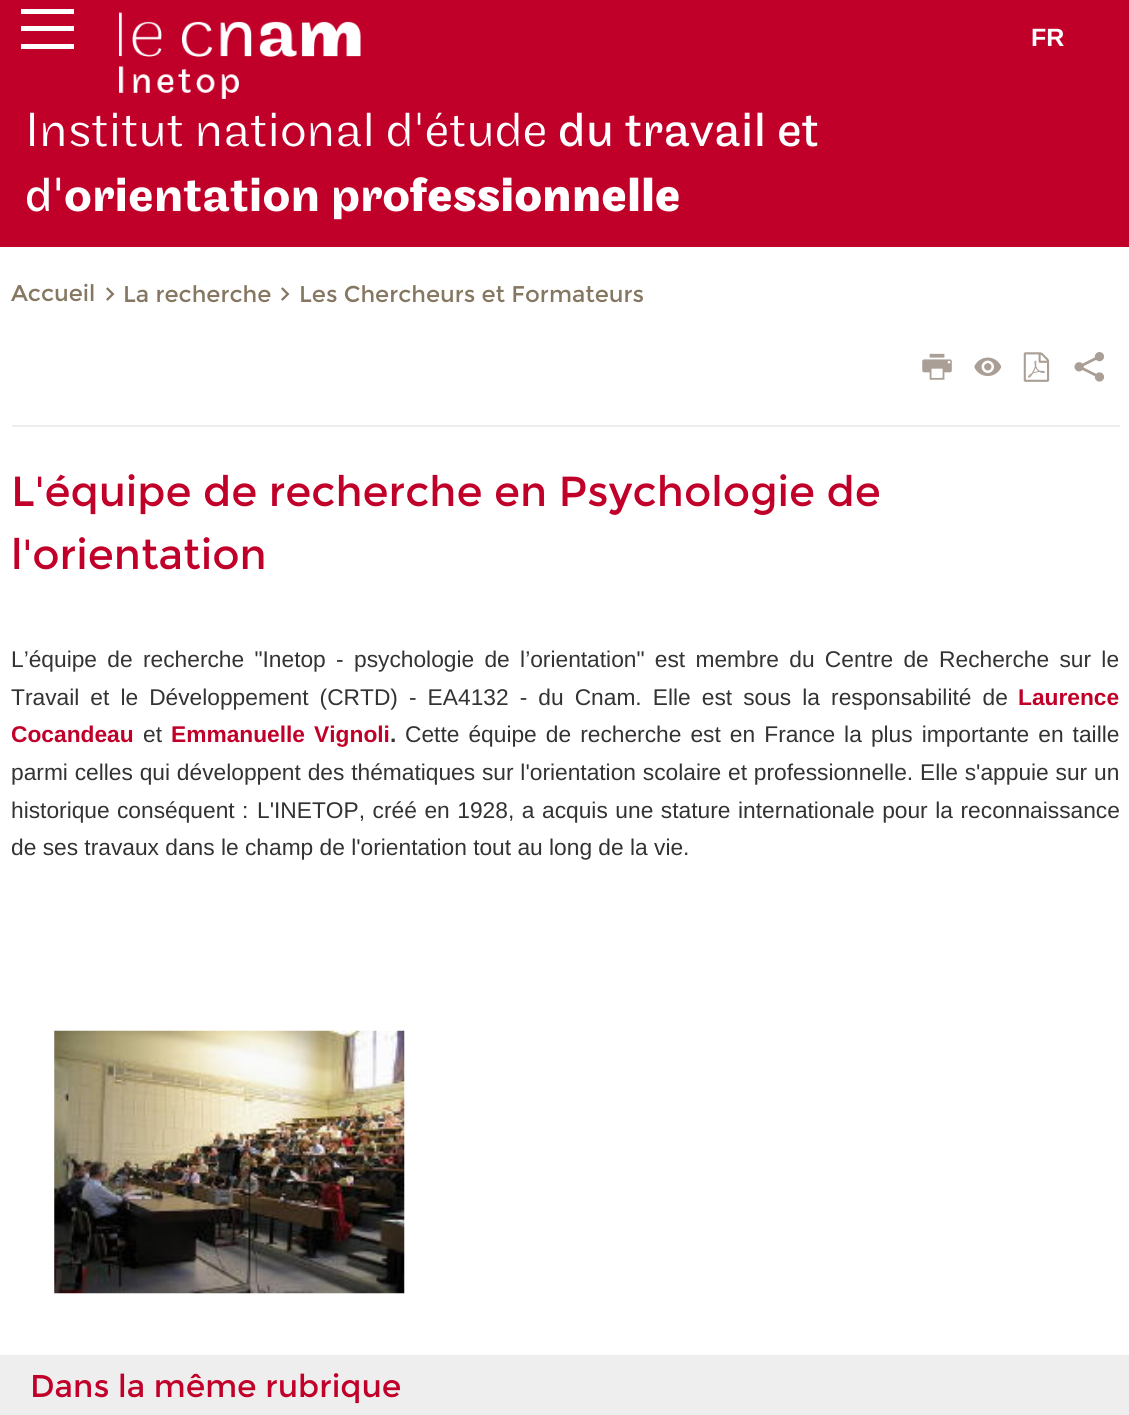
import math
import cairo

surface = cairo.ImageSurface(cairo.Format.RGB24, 1129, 1415)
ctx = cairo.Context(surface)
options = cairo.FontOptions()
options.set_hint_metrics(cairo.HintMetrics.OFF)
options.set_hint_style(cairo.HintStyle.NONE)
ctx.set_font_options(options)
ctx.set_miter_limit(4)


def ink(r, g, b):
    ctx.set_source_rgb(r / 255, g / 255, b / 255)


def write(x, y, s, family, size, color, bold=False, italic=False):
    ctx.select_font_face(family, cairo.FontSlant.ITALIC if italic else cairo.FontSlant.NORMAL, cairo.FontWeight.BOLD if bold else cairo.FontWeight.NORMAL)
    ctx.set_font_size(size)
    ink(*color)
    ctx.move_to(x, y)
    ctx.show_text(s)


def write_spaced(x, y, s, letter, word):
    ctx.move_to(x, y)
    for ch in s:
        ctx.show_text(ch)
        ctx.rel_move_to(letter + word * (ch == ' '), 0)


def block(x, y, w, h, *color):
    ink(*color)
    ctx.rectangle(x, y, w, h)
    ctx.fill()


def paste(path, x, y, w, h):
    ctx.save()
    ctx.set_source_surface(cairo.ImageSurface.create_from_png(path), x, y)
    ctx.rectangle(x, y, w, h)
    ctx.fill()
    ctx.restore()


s1 = dict(family="Liberation Sans", size=25, color=(255, 255, 255), bold=True)
s2 = dict(family="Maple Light", size=50, color=(255, 255, 255))
s3 = dict(family="Maple", size=50, color=(255, 255, 255))
s4 = dict(family="Maple Medium", size=50, color=(255, 255, 255))
s5 = dict(family="Maple", size=50, color=(255, 255, 255), bold=True)
s6 = dict(family="Montserrat", size=22.75, color=(133, 119, 97))
s7 = dict(family="Montserrat", size=42, color=(193, 0, 42))
s8 = dict(family="Liberation Sans", size=22.75, color=(193, 0, 42), bold=True)
s9 = dict(family="Liberation Sans", size=22.75, color=(51, 51, 51))
s10 = dict(family="Liberation Sans", size=22.75, color=(51, 51, 51), bold=True)
s11 = dict(family="Montserrat", size=31.5, color=(193, 0, 42))

ink(193, 0, 42)
ctx.paint()
block(21, 26, 53, 5, 255, 255, 255)
block(21, 9, 53, 5, 255, 255, 255)
block(21, 44, 53, 5, 255, 255, 255)
write(1031, 46, "FR", **s1)
paste("pic1.png", 119, 12, 242, 87)
write(25, 146, "Institut national d'étude", **s2)
write(558, 146, "du travail et", **s3)
write(25, 211, "d'", **s3)
write(64, 211, "orientation pro", **s4)
write(410, 211, "fessionnelle", **s5)
block(0, 247, 1129, 1108, 255, 255, 255)
block(12, 425, 1108, 2, 238, 238, 238)
write(11, 301, "Accueil", **s6)
paste("pic2.png", 106, 287, 9, 14)
write(123, 302, "La recherche", **s6)
paste("pic2.png", 281, 287, 9, 14)
write(299, 302, "Les Chercheurs et Formateurs", **s6)
paste("pic3.png", 922, 353, 30, 27)
paste("pic4.png", 974, 357, 28, 19)
paste("pic5.png", 1023, 352, 27, 30)
paste("pic6.png", 1074, 352, 31, 30)
write(11, 506, "L'équipe de recherche en Psychologie de", **s7)
write(11, 569, "l'orientation", **s7)
ctx.select_font_face("Liberation Sans")
ctx.set_font_size(22.75)
ink(51, 51, 51)
write_spaced(11, 667, "L’équipe de recherche \"Inetop - psychologie de l’orientation\" est membre du Centre de Recherche sur le", 0, 4)
write_spaced(11, 705, "Travail et le Développement (CRTD) - EA4132 - du Cnam. Elle est sous la responsabilité de", 0, 4.75)
write(1018, 705, "Laurence", **s8)
write(11, 742, "Cocandeau", **s8)
write(143, 742, "et", **s9)
ctx.select_font_face("Liberation Sans", cairo.FontSlant.NORMAL, cairo.FontWeight.BOLD)
ink(193, 0, 42)
write_spaced(171, 742, "Emmanuelle Vignoli", 0, 2.75)
write(390, 742, ".", **s10)
ctx.select_font_face("Liberation Sans")
write_spaced(405, 742, "Cette équipe de recherche est en France la plus importante en taille", 0, 2.75)
write_spaced(11, 780, "parmi celles qui développent des thématiques sur l'orientation scolaire et professionnelle. Elle s'appuie sur un", 0, 0.5)
write_spaced(11, 818, "historique conséquent :", 0, 1)
write_spaced(257, 818, "L'INETOP, créé en 1928, a acquis une stature internationale pour la reconnaissance", 0, 1.25)
write(11, 855, "de ses travaux dans le champ de l'orientation tout au long de la vie.", **s9)
paste("pic7.png", 54, 1030, 351, 264)
block(0, 1355, 1129, 60, 238, 238, 238)
write(30, 1397, "Dans la même rubrique", **s11)
surface.write_to_png("screenshot.png")
